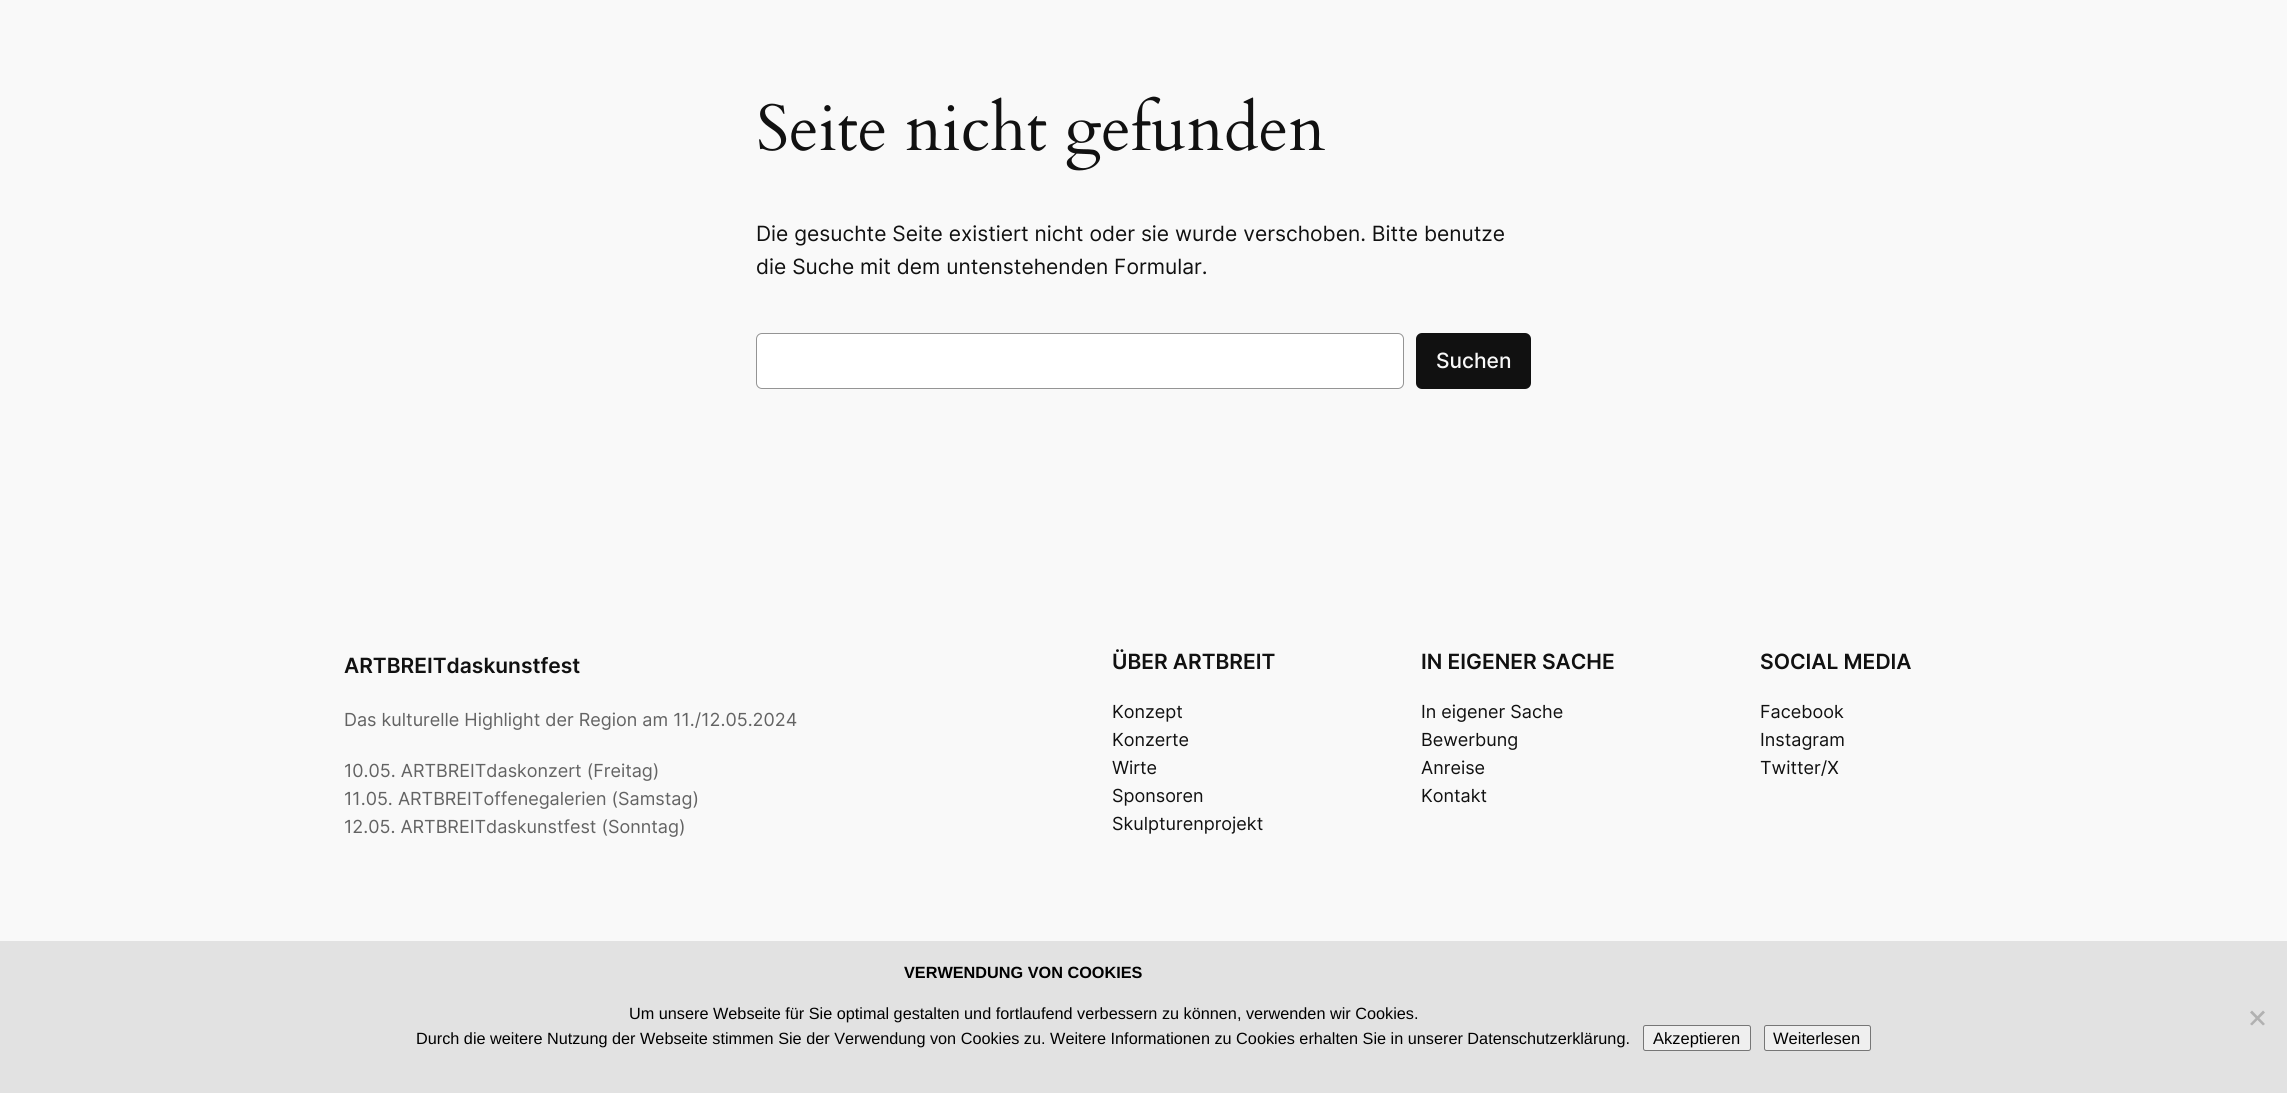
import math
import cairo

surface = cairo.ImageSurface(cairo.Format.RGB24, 2287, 1093)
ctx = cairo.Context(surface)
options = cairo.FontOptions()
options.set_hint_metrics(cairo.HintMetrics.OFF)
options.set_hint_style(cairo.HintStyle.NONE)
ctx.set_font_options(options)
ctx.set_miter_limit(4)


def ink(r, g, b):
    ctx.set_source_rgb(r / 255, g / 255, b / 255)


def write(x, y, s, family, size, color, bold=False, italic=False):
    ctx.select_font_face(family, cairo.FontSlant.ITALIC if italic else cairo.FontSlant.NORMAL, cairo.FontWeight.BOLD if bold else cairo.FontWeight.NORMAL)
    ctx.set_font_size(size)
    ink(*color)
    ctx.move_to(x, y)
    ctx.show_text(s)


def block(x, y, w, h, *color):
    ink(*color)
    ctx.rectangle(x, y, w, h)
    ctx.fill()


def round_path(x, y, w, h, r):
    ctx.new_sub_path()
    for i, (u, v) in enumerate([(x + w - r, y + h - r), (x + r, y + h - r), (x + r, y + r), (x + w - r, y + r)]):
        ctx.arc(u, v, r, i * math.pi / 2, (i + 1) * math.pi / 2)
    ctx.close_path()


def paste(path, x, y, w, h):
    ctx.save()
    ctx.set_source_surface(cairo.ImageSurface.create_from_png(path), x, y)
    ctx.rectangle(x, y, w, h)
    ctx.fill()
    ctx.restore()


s1 = dict(family="Inter", size=21, color=(17, 17, 17))
s2 = dict(family="Inter Medium", size=21, color=(249, 249, 249))
s3 = dict(family="Inter SemiBold", size=21, color=(17, 17, 17))
s4 = dict(family="Inter", size=18, color=(99, 99, 99))
s5 = dict(family="Inter", size=18, color=(17, 17, 17))
s6 = dict(family="Liberation Sans", size=16.25, color=(0, 0, 0), bold=True)
s7 = dict(family="Liberation Sans", size=16.25, color=(0, 0, 0))
s8 = dict(family="Liberation Sans", size=16.5, color=(0, 0, 0))

ink(249, 249, 249)
ctx.paint()
paste("pic1.png", 759, 96, 566, 75)
write(756, 241, "Die gesuchte Seite existiert nicht oder sie wurde verschoben. Bitte benutze", **s1)
write(756, 274, "die Suche mit dem untenstehenden Formular.", **s1)
ink(255, 255, 255)
round_path(756.5, 333.5, 647, 55, 5.5)
ctx.fill_preserve()
ink(148, 148, 148)
ctx.set_line_width(1)
ctx.stroke()
ink(17, 17, 17)
round_path(1416, 333, 115, 56, 6)
ctx.fill()
write(1436, 368, "Suchen", **s2)
write(344, 673, "ARTBREITdaskunstfest", **s3)
write(344, 726, "Das kulturelle Highlight der Region am 11./12.05.2024", **s4)
write(344, 777, "10.05. ARTBREITdaskonzert (Freitag)", **s4)
write(344, 805, "11.05. ARTBREIToffenegalerien (Samstag)", **s4)
write(344, 833, "12.05. ARTBREITdaskunstfest (Sonntag)", **s4)
write(1112, 669, "ÜBER ARTBREIT", **s3)
write(1112, 718, "Konzept", **s5)
write(1112, 746, "Konzerte", **s5)
write(1112, 774, "Wirte", **s5)
write(1112, 802, "Sponsoren", **s5)
write(1112, 830, "Skulpturenprojekt", **s5)
write(1421, 669, "IN EIGENER SACHE", **s3)
write(1421, 718, "In eigener Sache", **s5)
write(1421, 746, "Bewerbung", **s5)
write(1421, 774, "Anreise", **s5)
write(1421, 802, "Kontakt", **s5)
write(1760, 669, "SOCIAL MEDIA", **s3)
write(1760, 718, "Facebook", **s5)
write(1760, 746, "Instagram", **s5)
write(1760, 774, "Twitter/X", **s5)
block(0, 941, 2287, 152, 226, 226, 226)
write(904, 978, "VERWENDUNG VON COOKIES", **s6)
write(629, 1019, "Um unsere Webseite für Sie optimal gestalten und fortlaufend verbessern zu können, verwenden wir Cookies.", **s7)
write(416, 1044, "Durch die weitere Nutzung der Webseite stimmen Sie der Verwendung von Cookies zu. Weitere Informationen zu Cookies erhalten Sie in unserer Datenschutzerklärung.", **s7)
ink(177, 177, 177)
ctx.new_path()
ctx.move_to(2263, 1010.5)
ctx.line_to(2265, 1012.5)
ctx.line_to(2252, 1025.5)
ctx.line_to(2250, 1024)
ctx.close_path()
ctx.fill()
ctx.new_path()
ctx.move_to(2250, 1012.5)
ctx.line_to(2252, 1010.5)
ctx.line_to(2265, 1024)
ctx.line_to(2263, 1025.5)
ctx.close_path()
ctx.fill()
ink(239, 239, 239)
round_path(1643.5, 1025.5, 107, 25, 2)
ctx.fill_preserve()
ink(118, 118, 118)
ctx.stroke()
write(1653, 1044, "Akzeptieren", **s8)
ink(239, 239, 239)
round_path(1764.5, 1025.5, 106, 25, 2)
ctx.fill_preserve()
ink(118, 118, 118)
ctx.stroke()
write(1773, 1044, "Weiterlesen", **s8)
surface.write_to_png("screenshot.png")
